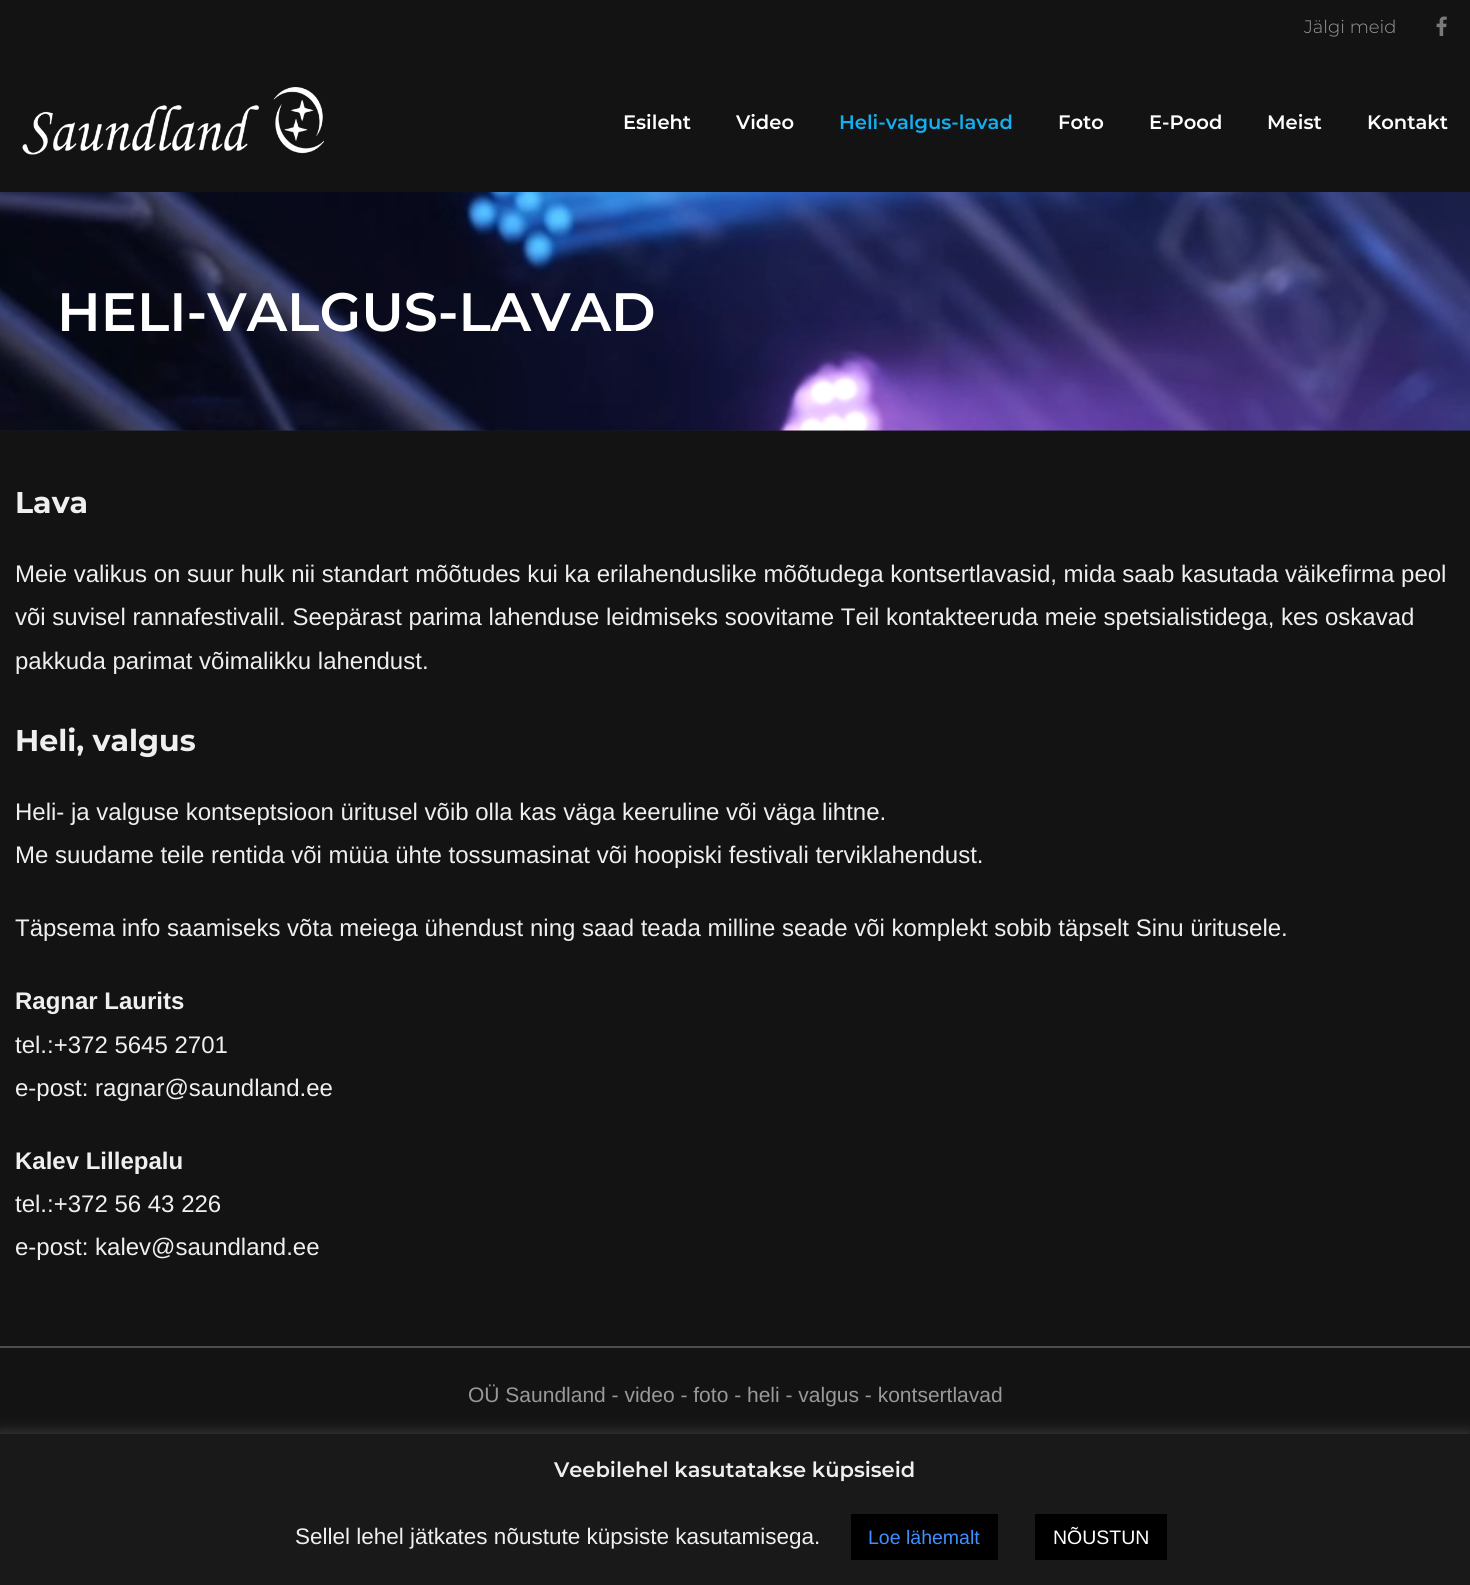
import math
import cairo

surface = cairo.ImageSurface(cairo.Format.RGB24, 1470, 1585)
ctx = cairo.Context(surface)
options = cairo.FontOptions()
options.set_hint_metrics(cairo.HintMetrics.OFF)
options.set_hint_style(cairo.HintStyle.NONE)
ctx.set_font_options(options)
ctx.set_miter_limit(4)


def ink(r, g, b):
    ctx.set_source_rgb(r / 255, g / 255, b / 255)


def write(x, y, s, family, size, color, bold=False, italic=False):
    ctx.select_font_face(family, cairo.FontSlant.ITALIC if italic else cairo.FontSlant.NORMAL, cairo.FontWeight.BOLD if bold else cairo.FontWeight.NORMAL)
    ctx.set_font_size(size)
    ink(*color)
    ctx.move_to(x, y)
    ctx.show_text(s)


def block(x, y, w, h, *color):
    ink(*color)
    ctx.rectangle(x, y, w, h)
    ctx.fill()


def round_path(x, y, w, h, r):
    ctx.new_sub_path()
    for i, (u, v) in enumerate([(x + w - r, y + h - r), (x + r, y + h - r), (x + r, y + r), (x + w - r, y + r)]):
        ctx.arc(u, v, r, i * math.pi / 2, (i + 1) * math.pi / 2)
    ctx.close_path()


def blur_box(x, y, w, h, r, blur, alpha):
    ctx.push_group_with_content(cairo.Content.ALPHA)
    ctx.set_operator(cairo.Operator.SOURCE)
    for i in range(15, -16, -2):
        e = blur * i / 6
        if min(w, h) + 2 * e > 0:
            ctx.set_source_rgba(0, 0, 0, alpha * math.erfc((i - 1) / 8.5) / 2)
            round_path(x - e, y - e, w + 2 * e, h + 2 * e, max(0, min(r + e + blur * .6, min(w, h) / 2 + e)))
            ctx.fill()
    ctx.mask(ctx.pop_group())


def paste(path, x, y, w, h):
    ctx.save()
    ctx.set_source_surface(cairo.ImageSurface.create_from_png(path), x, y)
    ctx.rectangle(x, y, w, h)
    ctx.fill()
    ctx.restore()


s1 = dict(family="Montserrat Light", size=18, color=(153, 153, 153))
s2 = dict(family="Montserrat SemiBold", size=19.5, color=(255, 255, 255))
s3 = dict(family="Montserrat SemiBold", size=19.5, color=(19, 175, 240))
s4 = dict(family="Montserrat SemiBold", size=54, color=(255, 255, 255))
s5 = dict(family="Montserrat", size=30, color=(239, 239, 239), bold=True)
s6 = dict(family="Liberation Sans", size=24, color=(239, 239, 239))
s7 = dict(family="Liberation Sans", size=24, color=(239, 239, 239), bold=True)
s8 = dict(family="Liberation Sans", size=21, color=(153, 153, 153))
s9 = dict(family="Montserrat SemiBold", size=21, color=(239, 239, 239))
s10 = dict(family="Liberation Sans", size=22.5, color=(239, 239, 239))
s11 = dict(family="Liberation Sans", size=19.5, color=(63, 143, 255))
s12 = dict(family="Liberation Sans", size=19.5, color=(255, 255, 255))

ink(19, 19, 19)
ctx.paint()
write(1304, 33, "Jälgi meid", **s1)
paste("pic1.png", 1436, 16, 11, 20)
paste("pic2.png", 22, 87, 302, 68)
write(623, 129, "Esileht", **s2)
write(736, 129, "Video", **s2)
write(839, 129, "Heli-valgus-lavad", **s3)
write(1058, 129, "Foto", **s2)
write(1149, 129, "E-Pood", **s2)
write(1267, 129, "Meist", **s2)
write(1367, 129, "Kontakt", **s2)
block(0, 430, 1470, 1, 29, 29, 31)
paste("pic3.png", 0, 192, 1470, 239)
write(57, 331, "HELI-VALGUS-LAVAD", **s4)
write(15, 513, "Lava", **s5)
write(15, 582, "Meie valikus on suur hulk nii standart mõõtudes kui ka erilahenduslike mõõtudega kontsertlavasid, mida saab kasutada väikefirma peol", **s6)
write(15, 625, "või suvisel rannafestivalil. Seepärast parima lahenduse leidmiseks soovitame Teil kontakteeruda meie spetsialistidega, kes oskavad", **s6)
write(15, 669, "pakkuda parimat võimalikku lahendust.", **s6)
write(15, 751, "Heli, valgus", **s5)
write(15, 820, "Heli- ja valguse kontseptsioon üritusel võib olla kas väga keeruline või väga lihtne.", **s6)
write(15, 863, "Me suudame teile rentida või müüa ühte tossumasinat või hoopiski festivali terviklahendust.", **s6)
write(15, 936, "Täpsema info saamiseks võta meiega ühendust ning saad teada milline seade või komplekt sobib täpselt Sinu üritusele.", **s6)
write(15, 1009, "Ragnar Laurits", **s7)
write(15, 1053, "tel.:+372 5645 2701", **s6)
write(15, 1096, "e-post: ragnar@saundland.ee", **s6)
write(15, 1169, "Kalev Lillepalu", **s7)
write(15, 1212, "tel.:+372 56 43 226", **s6)
write(15, 1255, "e-post: kalev@saundland.ee", **s6)
block(0, 1346, 1470, 2, 77, 77, 77)
write(468, 1402, "OÜ Saundland - video - foto - heli - valgus - kontsertlavad", **s8)
ink(172, 171, 171)
blur_box(0, 1433, 1470, 151, 0, 7.5, 0.3)
block(0, 1434, 1470, 151, 25, 25, 25)
write(554, 1477, "Veebilehel kasutatakse küpsiseid", **s9)
write(295, 1544, "Sellel lehel jätkates nõustute küpsiste kasutamisega.", **s10)
block(851, 1514, 147, 46, 0, 0, 0)
write(868, 1544, "Loe lähemalt", **s11)
block(1035, 1514, 132, 46, 0, 0, 0)
write(1053, 1544, "NÕUSTUN", **s12)
surface.write_to_png("screenshot.png")
